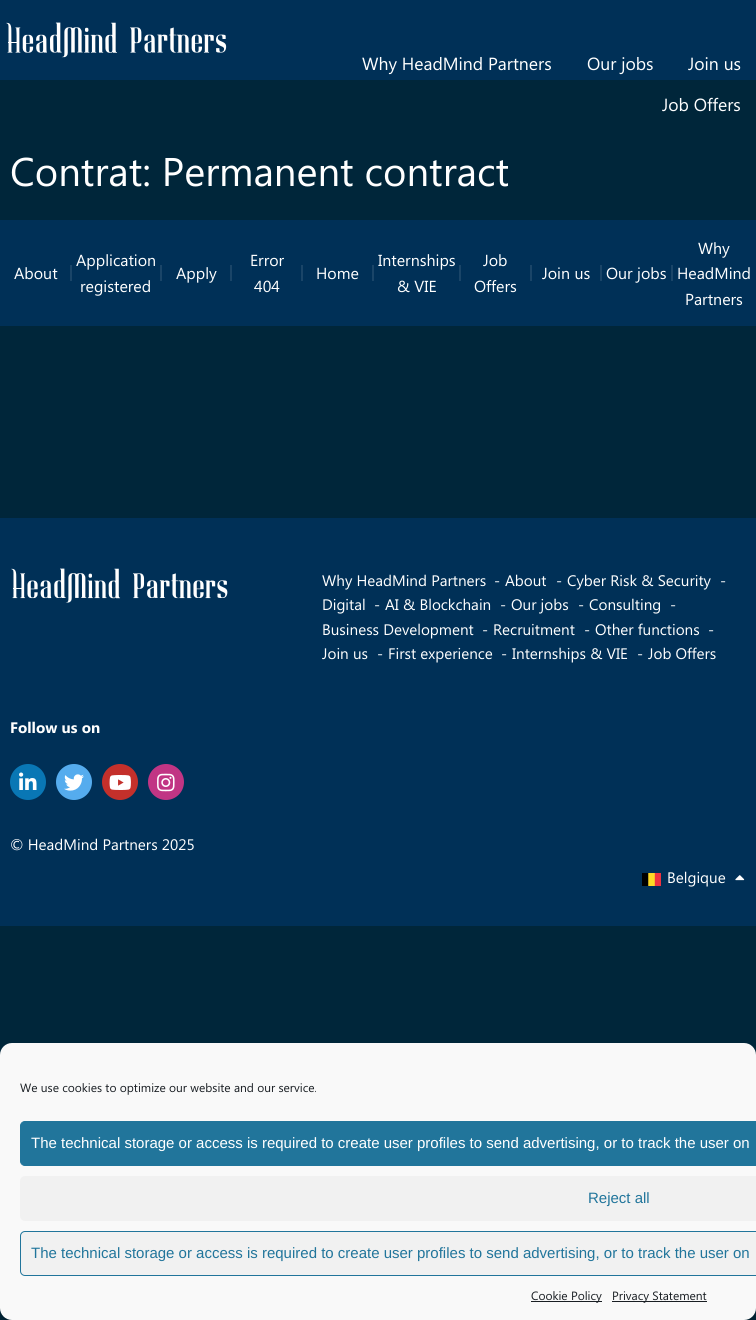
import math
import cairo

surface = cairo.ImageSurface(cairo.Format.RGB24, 756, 1320)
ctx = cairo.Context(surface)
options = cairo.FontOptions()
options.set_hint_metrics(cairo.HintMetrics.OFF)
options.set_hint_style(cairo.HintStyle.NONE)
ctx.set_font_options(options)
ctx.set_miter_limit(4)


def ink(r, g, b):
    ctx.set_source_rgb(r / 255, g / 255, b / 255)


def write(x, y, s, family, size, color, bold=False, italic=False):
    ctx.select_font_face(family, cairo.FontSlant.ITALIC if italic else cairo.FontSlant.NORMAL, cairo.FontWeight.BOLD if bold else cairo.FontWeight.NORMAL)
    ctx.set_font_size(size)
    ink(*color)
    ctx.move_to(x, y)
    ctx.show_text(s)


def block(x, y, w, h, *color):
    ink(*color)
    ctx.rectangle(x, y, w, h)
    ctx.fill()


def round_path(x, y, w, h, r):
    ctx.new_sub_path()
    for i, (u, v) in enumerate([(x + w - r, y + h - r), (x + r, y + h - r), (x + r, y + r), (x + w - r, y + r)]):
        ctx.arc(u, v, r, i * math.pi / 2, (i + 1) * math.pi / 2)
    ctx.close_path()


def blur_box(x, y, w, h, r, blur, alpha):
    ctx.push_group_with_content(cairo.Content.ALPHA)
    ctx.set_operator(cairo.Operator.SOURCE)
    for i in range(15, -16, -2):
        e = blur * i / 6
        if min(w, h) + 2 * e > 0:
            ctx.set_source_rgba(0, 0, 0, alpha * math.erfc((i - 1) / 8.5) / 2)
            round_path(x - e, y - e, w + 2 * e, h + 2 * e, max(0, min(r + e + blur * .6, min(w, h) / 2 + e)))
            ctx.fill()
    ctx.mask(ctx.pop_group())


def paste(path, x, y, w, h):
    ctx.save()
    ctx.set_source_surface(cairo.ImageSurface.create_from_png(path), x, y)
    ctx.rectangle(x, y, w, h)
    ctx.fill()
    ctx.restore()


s1 = dict(family="Segoe UI", size=17.6, color=(255, 255, 255))
s2 = dict(family="Segoe UI", size=40, color=(255, 255, 255))
s3 = dict(family="Segoe UI", size=16, color=(255, 255, 255))
s4 = dict(family="Segoe UI", size=15.25, color=(255, 255, 255))
s5 = dict(family="Segoe UI", size=15.25, color=(255, 255, 255), bold=True)
s6 = dict(family="Segoe UI", size=12, color=(25, 30, 35))
s7 = dict(family="Liberation Sans", size=15, color=(255, 255, 255))
s8 = dict(family="Liberation Sans", size=15, color=(33, 117, 155))

ink(0, 38, 58)
ctx.paint()
block(0, 0, 756, 80, 0, 48, 87)
paste("pic1.png", 6, 22, 221, 36)
write(362, 70, "Why HeadMind Partners", **s1)
write(587, 70, "Our jobs", **s1)
write(688, 70, "Join us", **s1)
write(662, 111, "Job Offers", **s1)
write(10, 186, "Contrat: Permanent contract", **s2)
block(0, 220, 756, 106, 0, 48, 87)
write(14, 279, "About", **s3)
block(70, 265, 2, 16, 26, 69, 104)
write(76, 266, "Application", **s3)
write(80, 292, "registered", **s3)
block(160, 265, 2, 16, 26, 69, 104)
write(176, 279, "Apply", **s3)
block(230, 265, 2, 16, 26, 69, 104)
write(250, 266, "Error", **s3)
write(254, 292, "404", **s3)
block(301, 265, 2, 16, 26, 69, 104)
write(316, 279, "Home", **s3)
block(372, 265, 2, 16, 26, 69, 104)
write(378, 266, "Internships", **s3)
write(397, 292, "& VIE", **s3)
block(459, 265, 2, 16, 26, 69, 104)
write(483, 266, "Job", **s3)
write(474, 292, "Offers", **s3)
block(530, 265, 2, 16, 26, 69, 104)
write(542, 279, "Join us", **s3)
block(600, 265, 2, 16, 26, 69, 104)
write(606, 279, "Our jobs", **s3)
block(671, 265, 2, 16, 26, 69, 104)
write(698, 254, "Why", **s3)
write(677, 279, "HeadMind", **s3)
write(685, 305, "Partners", **s3)
block(0, 518, 756, 408, 0, 48, 87)
paste("pic2.png", 11, 568, 217, 35)
write(322, 586, "Why HeadMind Partners", **s4)
write(494, 586, "-", **s4)
write(505, 586, "About", **s4)
write(556, 586, "-", **s4)
write(567, 586, "Cyber Risk & Security", **s4)
write(720, 586, "-", **s4)
write(322, 610, "Digital", **s4)
write(374, 610, "-", **s4)
write(385, 610, "AI & Blockchain", **s4)
write(578, 610, "-", **s4)
write(589, 610, "Consulting", **s4)
write(670, 610, "-", **s4)
write(322, 635, "Business Development", **s4)
write(482, 635, "-", **s4)
write(493, 635, "Recruitment", **s4)
write(584, 635, "-", **s4)
write(595, 635, "Other functions", **s4)
write(500, 610, "-", **s4)
write(511, 610, "Our jobs", **s4)
write(708, 635, "-", **s4)
write(322, 659, "Join us", **s4)
write(377, 659, "-", **s4)
write(388, 659, "First experience", **s4)
write(501, 659, "-", **s4)
write(512, 659, "Internships & VIE", **s4)
write(637, 659, "-", **s4)
write(648, 659, "Job Offers", **s4)
write(10, 733, "Follow us on", **s5)
ink(9, 119, 181)
ctx.new_path()
ctx.arc(28, 782, 18, 0, 2 * math.pi)
ctx.fill()
paste("pic3.png", 19, 772, 18, 18)
ink(85, 172, 238)
ctx.arc(74, 782, 18, 0, 2 * math.pi)
ctx.fill()
paste("pic4.png", 64, 774, 20, 17)
ink(196, 48, 43)
ctx.arc(120, 782, 18, 0, 2 * math.pi)
ctx.fill()
paste("pic5.png", 109, 775, 22, 15)
ink(193, 53, 132)
ctx.arc(166, 782, 18, 0, 2 * math.pi)
ctx.fill()
paste("pic6.png", 157, 773, 18, 19)
write(10, 850, "© HeadMind Partners 2025", **s4)
paste("pic7.png", 642, 873, 19, 13)
write(667, 883, "Belgique", **s4)
paste("pic8.png", 735, 875, 10, 6)
ink(0, 0, 0)
blur_box(0, 1049, 756, 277, 12, 3, 0.23)
ink(249, 249, 249)
round_path(0, 1043, 756, 277, 12)
ctx.fill()
write(20, 1092, "We use cookies to optimize our website and our service.", **s6)
ink(33, 117, 155)
round_path(20.5, 1121.5, 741, 44, 4.5)
ctx.fill_preserve()
ctx.set_line_width(1)
ctx.stroke()
write(31, 1148, "The technical storage or access is required to create user profiles to send advertising, or to track the user on", **s7)
ink(241, 241, 241)
round_path(20, 1176, 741, 45, 5)
ctx.fill()
write(588, 1203, "Reject all", **s8)
ink(241, 241, 241)
round_path(20.5, 1231.5, 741, 44, 4.5)
ctx.fill_preserve()
ink(33, 117, 155)
ctx.stroke()
write(31, 1258, "The technical storage or access is required to create user profiles to send advertising, or to track the user on", **s8)
block(531, 1301, 71, 1, 25, 30, 35)
write(531, 1300, "Cookie Policy", **s6)
block(612, 1301, 95, 1, 25, 30, 35)
write(612, 1300, "Privacy Statement", **s6)
surface.write_to_png("screenshot.png")
